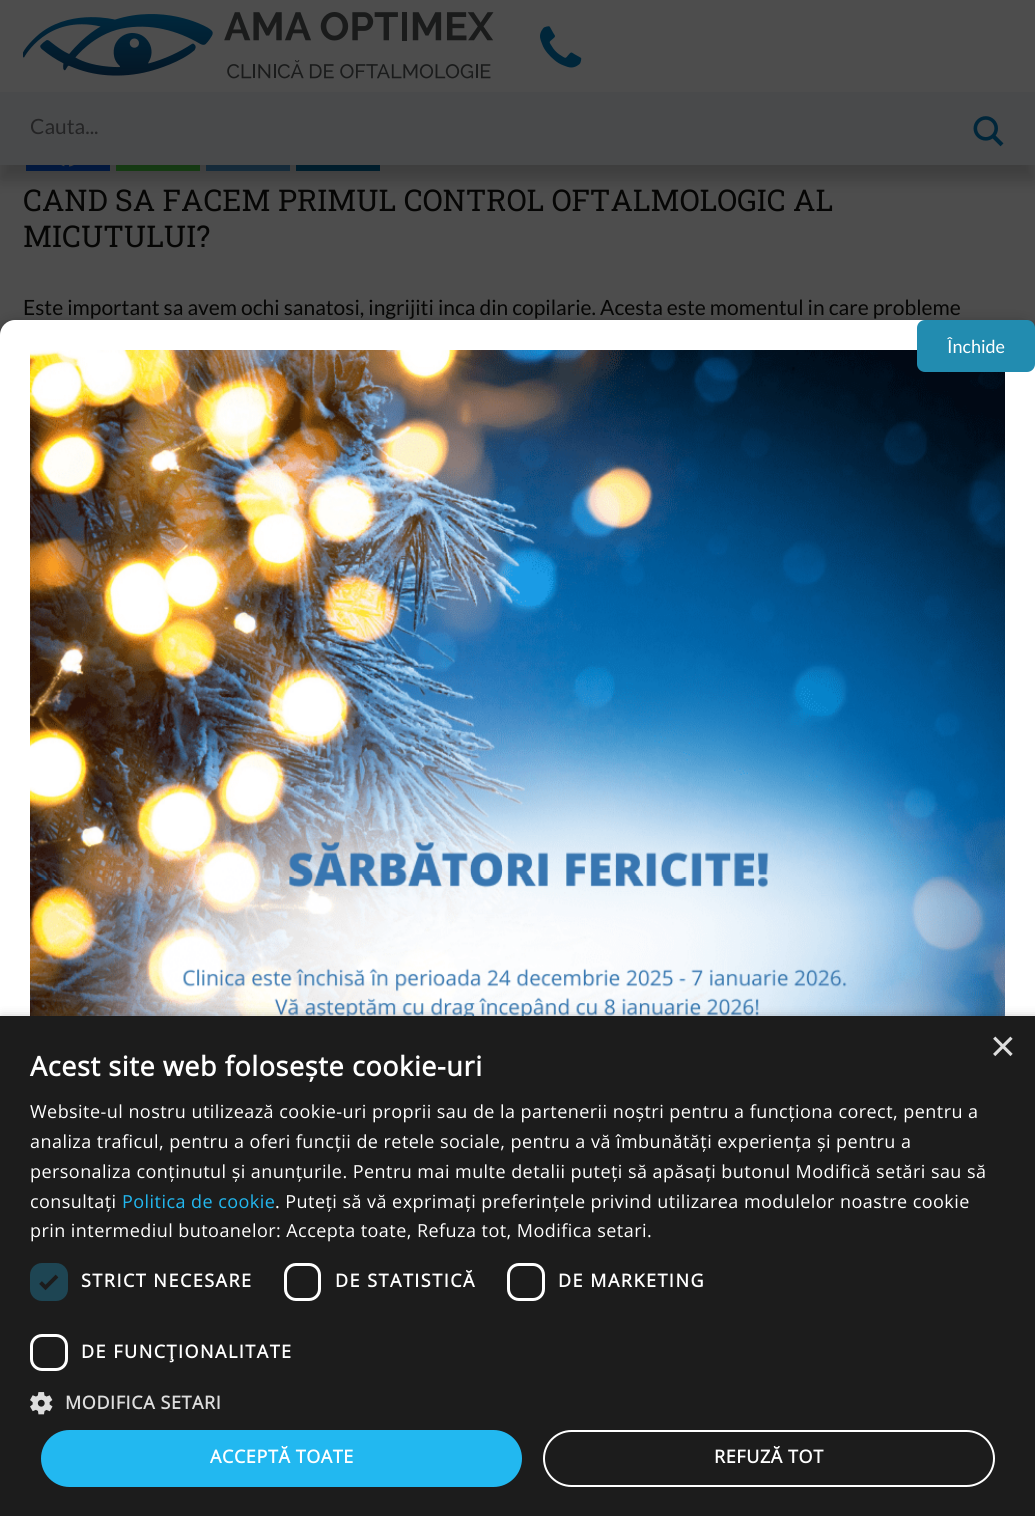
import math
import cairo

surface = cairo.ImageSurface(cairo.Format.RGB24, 1035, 1516)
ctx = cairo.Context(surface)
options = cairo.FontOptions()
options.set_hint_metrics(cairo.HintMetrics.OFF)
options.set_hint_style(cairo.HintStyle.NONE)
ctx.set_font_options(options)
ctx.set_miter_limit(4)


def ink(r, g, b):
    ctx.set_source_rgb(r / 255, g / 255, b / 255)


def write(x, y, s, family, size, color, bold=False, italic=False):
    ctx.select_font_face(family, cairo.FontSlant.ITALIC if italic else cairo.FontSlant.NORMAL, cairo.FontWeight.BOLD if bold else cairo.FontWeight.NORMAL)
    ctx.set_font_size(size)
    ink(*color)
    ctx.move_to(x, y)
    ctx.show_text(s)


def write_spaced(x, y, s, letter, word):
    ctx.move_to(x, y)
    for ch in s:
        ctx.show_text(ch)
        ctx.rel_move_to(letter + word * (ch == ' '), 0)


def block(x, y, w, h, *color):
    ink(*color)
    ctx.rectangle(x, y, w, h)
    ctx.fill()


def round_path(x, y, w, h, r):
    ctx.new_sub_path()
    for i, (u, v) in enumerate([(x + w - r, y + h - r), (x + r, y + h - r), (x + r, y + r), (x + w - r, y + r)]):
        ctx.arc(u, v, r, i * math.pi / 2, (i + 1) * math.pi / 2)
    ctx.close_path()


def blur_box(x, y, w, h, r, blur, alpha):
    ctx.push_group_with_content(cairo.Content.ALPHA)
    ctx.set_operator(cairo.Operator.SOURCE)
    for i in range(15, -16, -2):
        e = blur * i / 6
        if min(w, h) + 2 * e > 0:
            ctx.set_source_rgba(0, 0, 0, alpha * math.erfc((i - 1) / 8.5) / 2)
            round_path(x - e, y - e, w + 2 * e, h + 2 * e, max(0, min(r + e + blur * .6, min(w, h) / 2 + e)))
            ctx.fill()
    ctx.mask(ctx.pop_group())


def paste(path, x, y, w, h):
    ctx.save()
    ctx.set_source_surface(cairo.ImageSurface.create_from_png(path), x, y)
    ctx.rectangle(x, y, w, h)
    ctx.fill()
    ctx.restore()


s1 = dict(family="Lato", size=21, color=(36, 36, 37))
s2 = dict(family="Roboto Slab", size=30, color=(6, 6, 5))
s3 = dict(family="Lato", size=21, color=(6, 6, 5))
s4 = dict(family="Lato", size=18, color=(255, 255, 255))
s5 = dict(family="Liberation Sans", size=44, color=(221, 221, 221))

ink(77, 77, 77)
ctx.paint()
paste("pic1.png", 23, 12, 471, 67)
paste("pic2.png", 540, 26, 42, 42)
block(26, 165, 84, 6, 2, 30, 76)
paste("pic4.png", 61, 165, 13, 2)
block(116, 165, 84, 6, 26, 71, 23)
block(206, 165, 84, 6, 26, 52, 71)
block(296, 165, 84, 6, 0, 36, 54)
ink(0, 0, 0)
blur_box(0, 107, 1035, 73, 0, 7.5, 0.2)
block(0, 92, 1035, 73, 73, 74, 75)
write(30, 134, "Cauta...", **s1)
paste("pic3.png", 973, 116, 31, 31)
write(23, 211, "CAND SA FACEM PRIMUL CONTROL OFTALMOLOGIC AL", **s2)
write(23, 247, "MICUTULUI?", **s2)
write(23, 315, "Este important sa avem ochi sanatosi, ingrijiti inca din copilarie. Acesta este momentul in care probleme", **s3)
ink(0, 0, 0)
blur_box(0, 326, 1035, 877, 15, 7.5, 0.5)
ink(255, 255, 255)
round_path(0, 320, 1035, 877, 15)
ctx.fill()
paste("pic5.png", 30, 350, 975, 666)
ink(34, 140, 176)
round_path(917, 320, 118, 52, 8)
ctx.fill()
write(947, 353, "Închide", **s4)
ink(0, 0, 0)
blur_box(2, 1019, 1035, 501, 0, 6, 0.35)
block(0, 1016, 1035, 500, 28, 28, 28)
write(990, 1061, "×", **s5)
ctx.select_font_face("Open Sans", cairo.FontSlant.NORMAL, cairo.FontWeight.BOLD)
ctx.set_font_size(27)
ink(255, 255, 255)
write_spaced(30, 1076, "Acest site web folosește cookie-uri", 0.6, 0)
ctx.select_font_face("Open Sans")
ctx.set_font_size(18)
write_spaced(30, 1118, "Website-ul nostru utilizează cookie-uri proprii sau de la partenerii noștri pentru a funcționa corect, pentru a", 0.45, 0)
write_spaced(30, 1148, "analiza traficul, pentru a oferi funcții de retele sociale, pentru a vă îmbunătăți experiența și pentru a", 0.45, 0)
write_spaced(30, 1178, "personaliza conținutul și anunțurile. Pentru mai multe detalii puteți să apăsați butonul Modifică setări sau să", 0.45, 0)
write_spaced(30, 1208, "consultați", 0.45, 0)
ink(34, 184, 240)
write_spaced(122, 1208, "Politica de cookie", 0.45, 0)
ink(255, 255, 255)
write_spaced(275, 1208, ". Puteți să vă exprimați preferințele privind utilizarea modulelor noastre cookie", 0.45, 0)
write_spaced(30, 1237, "prin intermediul butoanelor: Accepta toate, Refuza tot, Modifica setari.", 0.45, 0)
ink(30, 69, 83)
round_path(30, 1263, 38, 38, 12)
ctx.fill()
ctx.new_path()
ctx.move_to(40.5, 1282.5)
ctx.line_to(45.5, 1287.5)
ctx.line_to(57, 1276)
ink(28, 28, 28)
ctx.set_line_width(3.9)
ctx.stroke()
ctx.select_font_face("Open Sans", cairo.FontSlant.NORMAL, cairo.FontWeight.BOLD)
ink(255, 255, 255)
write_spaced(81, 1287, "STRICT NECESARE", 1.5, 0)
round_path(285.5, 1264.5, 34, 35, 10.5)
ctx.set_line_width(3)
ctx.stroke()
write_spaced(335, 1287, "DE STATISTICĂ", 1.5, 0)
round_path(508.5, 1264.5, 35, 35, 10.5)
ctx.stroke()
write_spaced(558, 1287, "DE MARKETING", 1.5, 0)
round_path(31.5, 1335.5, 35, 34, 10.5)
ctx.stroke()
write_spaced(81, 1358, "DE FUNCŢIONALITATE", 1.5, 0)
paste("pic6.png", 30, 1392, 23, 23)
ink(221, 221, 221)
write_spaced(65, 1409, "MODIFICA SETARI", 0.6, 0)
ink(34, 184, 240)
round_path(41, 1430, 481, 57, 28.5)
ctx.fill()
ink(255, 255, 255)
write_spaced(210, 1463, "ACCEPTĂ TOATE", 0.6, 0)
round_path(544, 1431, 450, 55, 27.5)
ctx.set_line_width(2)
ctx.stroke()
write_spaced(714, 1463, "REFUZĂ TOT", 0.6, 0)
surface.write_to_png("screenshot.png")
